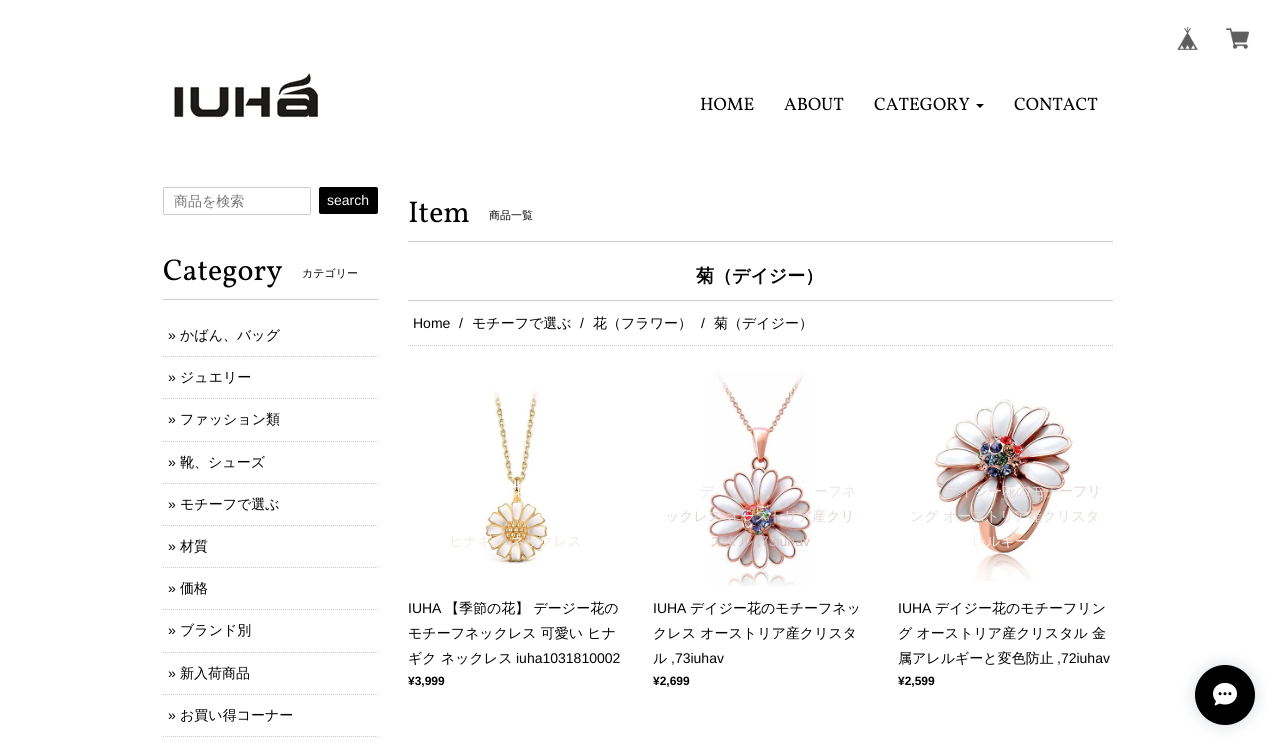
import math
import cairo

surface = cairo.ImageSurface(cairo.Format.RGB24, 1275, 745)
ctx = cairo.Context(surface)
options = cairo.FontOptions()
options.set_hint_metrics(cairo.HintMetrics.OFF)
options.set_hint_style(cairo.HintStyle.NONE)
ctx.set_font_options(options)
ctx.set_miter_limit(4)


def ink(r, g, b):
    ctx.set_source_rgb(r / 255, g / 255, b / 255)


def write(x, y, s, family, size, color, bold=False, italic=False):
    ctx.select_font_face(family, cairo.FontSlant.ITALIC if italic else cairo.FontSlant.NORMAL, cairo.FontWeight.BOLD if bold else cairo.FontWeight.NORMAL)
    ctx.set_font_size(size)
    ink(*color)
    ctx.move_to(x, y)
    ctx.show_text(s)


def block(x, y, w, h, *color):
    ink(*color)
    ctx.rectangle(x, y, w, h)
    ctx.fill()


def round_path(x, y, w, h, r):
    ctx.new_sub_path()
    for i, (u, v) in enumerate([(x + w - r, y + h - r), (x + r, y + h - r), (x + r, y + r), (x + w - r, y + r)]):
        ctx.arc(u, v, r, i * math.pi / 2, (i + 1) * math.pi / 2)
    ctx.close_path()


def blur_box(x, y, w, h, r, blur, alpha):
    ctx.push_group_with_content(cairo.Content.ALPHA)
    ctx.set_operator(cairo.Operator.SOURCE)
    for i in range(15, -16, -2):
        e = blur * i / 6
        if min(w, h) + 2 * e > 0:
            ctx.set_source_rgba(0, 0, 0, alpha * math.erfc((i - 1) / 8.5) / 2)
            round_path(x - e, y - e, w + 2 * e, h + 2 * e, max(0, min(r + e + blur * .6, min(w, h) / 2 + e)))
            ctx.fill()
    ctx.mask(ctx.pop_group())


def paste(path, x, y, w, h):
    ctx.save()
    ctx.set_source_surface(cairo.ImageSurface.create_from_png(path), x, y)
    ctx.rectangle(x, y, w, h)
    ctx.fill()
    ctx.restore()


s1 = dict(family="Vollkorn", size=18, color=(0, 0, 0))
s2 = dict(family="WenQuanYi Zen Hei Medium", size=14, color=(117, 117, 117))
s3 = dict(family="Liberation Sans", size=14, color=(255, 255, 255))
s4 = dict(family="Vollkorn", size=30, color=(0, 0, 0))
s5 = dict(family="WenQuanYi Zen Hei Medium", size=11, color=(0, 0, 0))
s6 = dict(family="Liberation Sans", size=14, color=(0, 0, 0))
s7 = dict(family="WenQuanYi Zen Hei Medium", size=14, color=(0, 0, 0))
s8 = dict(family="WenQuanYi Zen Hei", size=18, color=(0, 0, 0), bold=True)
s9 = dict(family="WenQuanYi Zen Hei Medium", size=14, color=(252, 250, 245))
s10 = dict(family="WenQuanYi Zen Hei Medium", size=14, color=(243, 235, 225))
s11 = dict(family="Liberation Sans", size=12, color=(0, 0, 0), bold=True)
s12 = dict(family="WenQuanYi Zen Hei Medium", size=14, color=(236, 229, 229))
s13 = dict(family="WenQuanYi Zen Hei Medium", size=14, color=(227, 214, 213))
s14 = dict(family="WenQuanYi Zen Hei Medium", size=14, color=(212, 193, 192))
s15 = dict(family="Liberation Sans", size=14, color=(212, 193, 192))
s16 = dict(family="WenQuanYi Zen Hei Medium", size=14, color=(231, 222, 219))
s17 = dict(family="WenQuanYi Zen Hei Medium", size=14, color=(247, 239, 235))

ink(255, 255, 255)
ctx.paint()
paste("pic1.png", 1177, 27, 21, 23)
paste("pic2.png", 1226, 27, 23, 23)
paste("pic3.png", 173, 73, 146, 46)
write(700, 110, "HOME", **s1)
write(784, 110, "ABOUT", **s1)
write(874, 110, "CATEGORY", **s1)
ctx.new_path()
ctx.move_to(976, 104)
ctx.line_to(984, 104)
ctx.line_to(980, 108)
ctx.close_path()
ctx.fill()
write(1014, 110, "CONTACT", **s1)
round_path(163.5, 187.5, 147, 27, 1.5)
ink(204, 204, 204)
ctx.set_line_width(1)
ctx.stroke()
write(174, 206, "商品を検索", **s2)
ink(0, 0, 0)
round_path(319, 187, 59, 27, 2)
ctx.fill()
write(327, 205, "search", **s3)
block(163, 299, 215, 1, 204, 204, 204)
write(163, 280, "Category", **s4)
write(302, 277, "カテゴリー", **s5)
ctx.new_path()
ctx.move_to(163, 356.5)
ctx.line_to(378, 356.5)
ink(204, 204, 204)
ctx.set_dash([1, 1])
ctx.stroke()
write(168, 340, "»", **s6)
write(180, 340, "かばん、バッグ", **s7)
ctx.new_path()
ctx.move_to(163, 398.5)
ctx.line_to(378, 398.5)
ink(204, 204, 204)
ctx.stroke()
write(168, 382, "»", **s6)
write(180, 382, "ジュエリー", **s7)
ctx.new_path()
ctx.move_to(163, 441.5)
ctx.line_to(378, 441.5)
ink(204, 204, 204)
ctx.stroke()
write(168, 424, "»", **s6)
write(180, 424, "ファッション類", **s7)
ctx.new_path()
ctx.move_to(163, 483.5)
ctx.line_to(378, 483.5)
ink(204, 204, 204)
ctx.stroke()
write(168, 467, "»", **s6)
write(180, 467, "靴、シューズ", **s7)
ctx.new_path()
ctx.move_to(163, 525.5)
ctx.line_to(378, 525.5)
ink(204, 204, 204)
ctx.stroke()
write(168, 509, "»", **s6)
write(180, 509, "モチーフで選ぶ", **s7)
ctx.new_path()
ctx.move_to(163, 567.5)
ctx.line_to(378, 567.5)
ink(204, 204, 204)
ctx.stroke()
write(168, 551, "»", **s6)
write(180, 551, "材質", **s7)
ctx.new_path()
ctx.move_to(163, 609.5)
ctx.line_to(378, 609.5)
ink(204, 204, 204)
ctx.stroke()
write(168, 593, "»", **s6)
write(180, 593, "価格", **s7)
ctx.new_path()
ctx.move_to(163, 652.5)
ctx.line_to(378, 652.5)
ink(204, 204, 204)
ctx.stroke()
write(168, 635, "»", **s6)
write(180, 635, "ブランド別", **s7)
ctx.new_path()
ctx.move_to(163, 694.5)
ctx.line_to(378, 694.5)
ink(204, 204, 204)
ctx.stroke()
write(168, 678, "»", **s6)
write(180, 678, "新入荷商品", **s7)
ctx.new_path()
ctx.move_to(163, 736.5)
ctx.line_to(378, 736.5)
ink(204, 204, 204)
ctx.stroke()
write(168, 720, "»", **s6)
write(180, 720, "お買い得コーナー", **s7)
block(408, 241, 705, 1, 204, 204, 204)
write(408, 222, "Item", **s4)
write(489, 219, "商品一覧", **s5)
block(408, 300, 705, 1, 204, 204, 204)
write(696, 282, "菊（デイジー）", **s8)
ctx.new_path()
ctx.move_to(408, 345.5)
ctx.line_to(1113, 345.5)
ink(204, 204, 204)
ctx.stroke()
write(413, 328, "Home", **s6)
write(459, 328, "/", **s6)
write(472, 328, "モチーフで選ぶ", **s7)
write(580, 328, "/", **s6)
write(593, 328, "花（フラワー）", **s7)
write(701, 328, "/", **s6)
write(714, 328, "菊（デイジー）", **s7)
paste("pic4.png", 484, 390, 64, 174)
write(510, 496, "花", **s9)
write(449, 546, "ヒナギク ネックレス", **s10)
write(408, 613, "IUHA", **s6)
write(445, 613, "【季節の花】 デージー花の", **s7)
write(408, 638, "モチーフネックレス 可愛い ヒナ", **s7)
write(408, 663, "ギク ネックレス", **s7)
write(516, 663, "iuha1031810002", **s6)
write(408, 685, "¥3,999", **s11)
paste("pic5.png", 708, 371, 104, 215)
write(700, 496, "デ", **s12)
write(814, 496, "ーフネ", **s12)
write(665, 521, "ックレス オーストリア産クリ", **s13)
write(710, 546, "スタル", **s14)
write(757, 546, ",73iuhav", **s15)
write(653, 613, "IUHA", **s6)
write(690, 613, "デイジー花のモチーフネッ", **s7)
write(653, 638, "クレス オーストリア産クリスタ", **s7)
write(653, 663, "ル", **s7)
write(671, 663, ",73iuhav", **s6)
write(653, 685, "¥2,699", **s11)
paste("pic6.png", 932, 399, 141, 182)
write(945, 496, "デイジー花のモチーフリ", **s13)
write(910, 521, "ング オーストリア産クリスタ", **s16)
write(972, 546, "レルギー", **s17)
write(898, 613, "IUHA", **s6)
write(935, 613, "デイジー花のモチーフリン", **s7)
write(898, 638, "グ オーストリア産クリスタル 金", **s7)
write(898, 663, "属アレルギーと変色防止", **s7)
write(1057, 663, ",72iuhav", **s6)
write(898, 685, "¥2,599", **s11)
ink(51, 66, 88)
blur_box(1195, 665, 60, 60, 30, 7.5, 0.2)
ink(0, 0, 0)
ctx.arc(1225, 695, 30, 0, 2 * math.pi)
ctx.fill()
paste("pic7.png", 1213, 682, 24, 24)
surface.write_to_png("screenshot.png")
